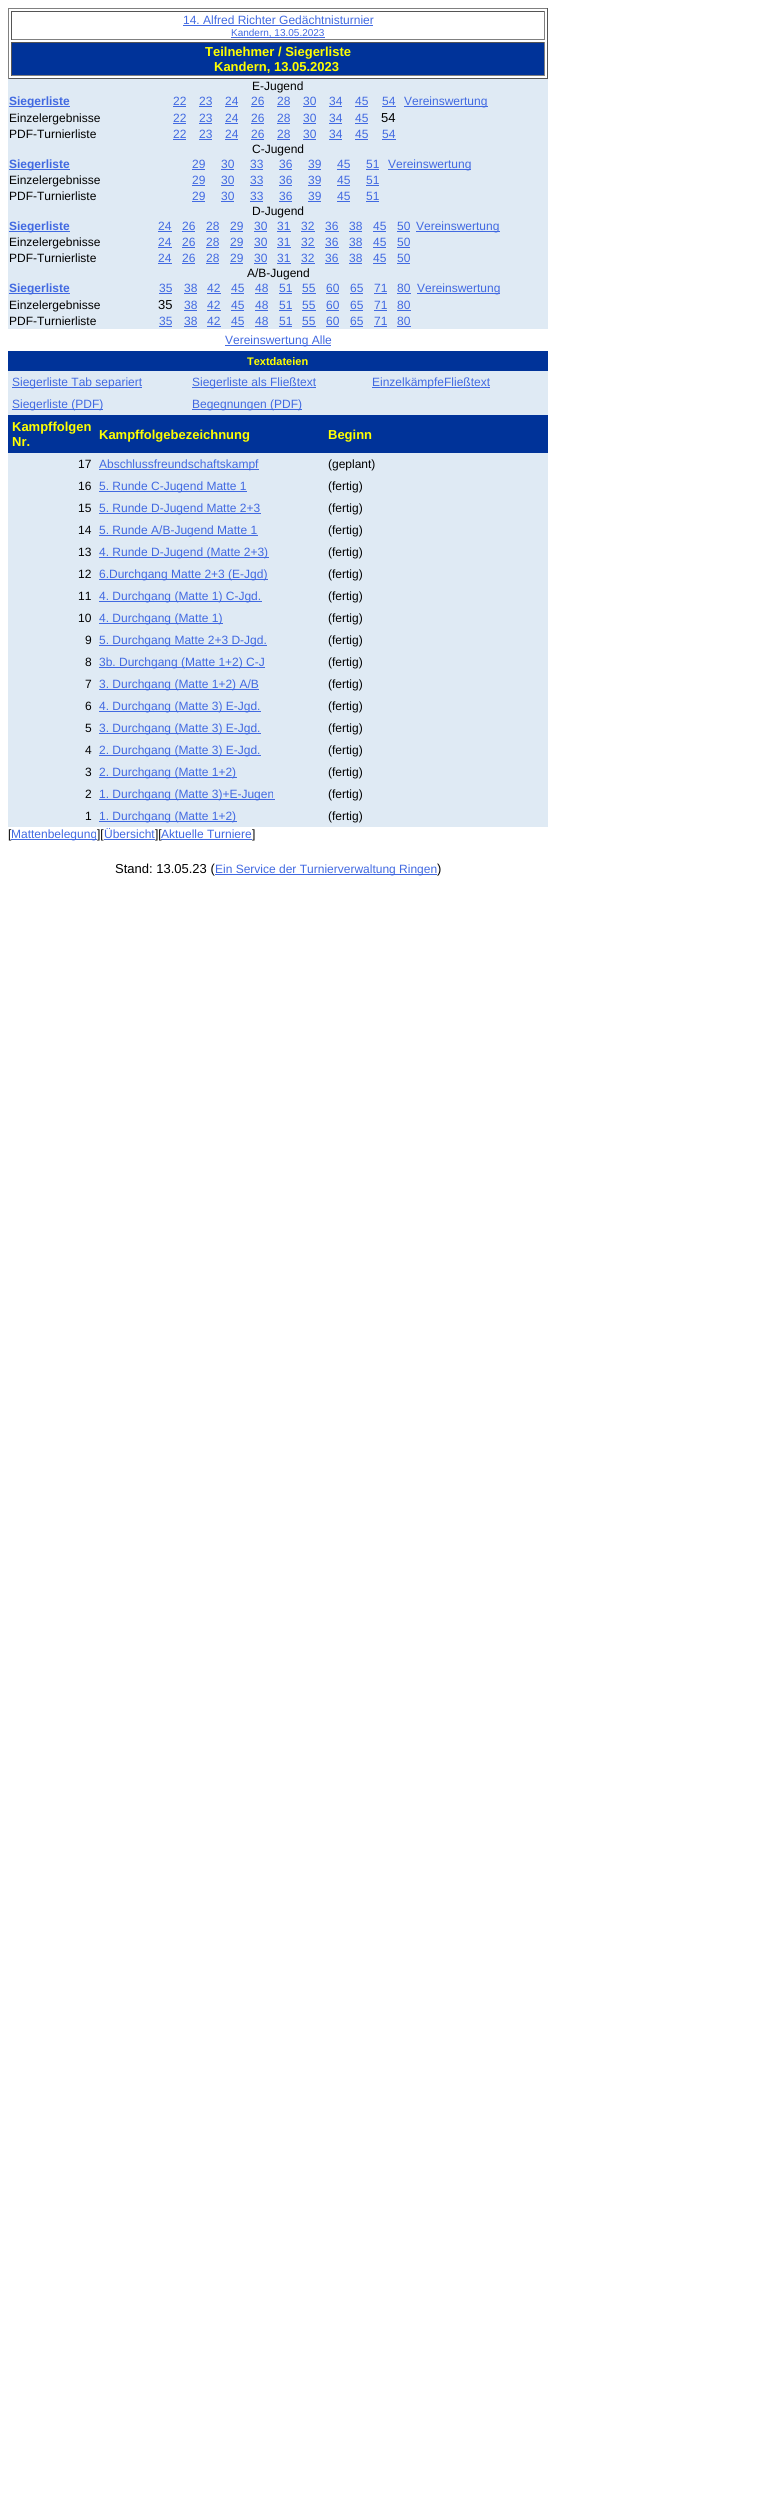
import math
import cairo

surface = cairo.ImageSurface(cairo.Format.RGB24, 769, 2508)
ctx = cairo.Context(surface)
options = cairo.FontOptions()
options.set_hint_metrics(cairo.HintMetrics.OFF)
options.set_hint_style(cairo.HintStyle.NONE)
ctx.set_font_options(options)
ctx.set_miter_limit(4)


def ink(r, g, b):
    ctx.set_source_rgb(r / 255, g / 255, b / 255)


def write(x, y, s, family, size, color, bold=False, italic=False):
    ctx.select_font_face(family, cairo.FontSlant.ITALIC if italic else cairo.FontSlant.NORMAL, cairo.FontWeight.BOLD if bold else cairo.FontWeight.NORMAL)
    ctx.set_font_size(size)
    ink(*color)
    ctx.move_to(x, y)
    ctx.show_text(s)


def block(x, y, w, h, *color):
    ink(*color)
    ctx.rectangle(x, y, w, h)
    ctx.fill()


s1 = dict(family="Liberation Sans", size=12, color=(65, 105, 225))
s2 = dict(family="Liberation Sans", size=10, color=(65, 105, 225))
s3 = dict(family="Liberation Sans", size=13, color=(255, 255, 0), bold=True)
s4 = dict(family="Liberation Sans", size=12, color=(0, 0, 0))
s5 = dict(family="Liberation Sans", size=12, color=(65, 105, 225), bold=True)
s6 = dict(family="Liberation Sans", size=13, color=(0, 0, 0))
s7 = dict(family="Liberation Sans", size=11, color=(255, 255, 0), bold=True)

ink(255, 255, 255)
ctx.paint()
block(8, 8, 540, 1, 128, 128, 128)
block(547, 8, 1, 71, 85, 85, 85)
block(8, 78, 540, 1, 85, 85, 85)
block(8, 8, 1, 71, 128, 128, 128)
block(11, 11, 534, 1, 85, 85, 85)
block(544, 11, 1, 29, 128, 128, 128)
block(11, 39, 534, 1, 128, 128, 128)
block(11, 11, 1, 29, 85, 85, 85)
write(183, 24, "14. Alfred Richter Gedächtnisturnier", **s1)
block(183, 25, 190, 1, 65, 105, 225)
block(231, 37, 94, 1, 65, 105, 225)
write(231, 36, "Kandern, 13.05.2023", **s2)
block(12, 43, 532, 32, 0, 51, 153)
block(11, 42, 534, 1, 85, 85, 85)
block(544, 42, 1, 34, 128, 128, 128)
block(11, 75, 534, 1, 128, 128, 128)
block(11, 42, 1, 34, 85, 85, 85)
write(205, 56, "Teilnehmer / Siegerliste", **s3)
write(214, 71, "Kandern, 13.05.2023", **s3)
block(8, 79, 540, 250, 223, 234, 244)
write(252, 90, "E-Jugend", **s4)
block(9, 106, 61, 1, 65, 105, 225)
write(9, 105, "Siegerliste", **s5)
write(173, 105, "22", **s1)
block(173, 106, 13, 1, 65, 105, 225)
write(199, 105, "23", **s1)
block(199, 106, 13, 1, 65, 105, 225)
write(225, 105, "24", **s1)
block(225, 106, 13, 1, 65, 105, 225)
write(251, 105, "26", **s1)
block(251, 106, 13, 1, 65, 105, 225)
write(277, 105, "28", **s1)
block(277, 106, 13, 1, 65, 105, 225)
write(303, 105, "30", **s1)
block(303, 106, 13, 1, 65, 105, 225)
write(329, 105, "34", **s1)
block(329, 106, 13, 1, 65, 105, 225)
write(355, 105, "45", **s1)
block(355, 106, 13, 1, 65, 105, 225)
write(382, 105, "54", **s1)
block(382, 106, 14, 1, 65, 105, 225)
block(404, 106, 84, 1, 65, 105, 225)
write(404, 105, "Vereinswertung", **s1)
write(9, 122, "Einzelergebnisse", **s4)
write(173, 122, "22", **s1)
block(173, 123, 13, 1, 65, 105, 225)
write(199, 122, "23", **s1)
block(199, 123, 13, 1, 65, 105, 225)
write(225, 122, "24", **s1)
block(225, 123, 13, 1, 65, 105, 225)
write(251, 122, "26", **s1)
block(251, 123, 13, 1, 65, 105, 225)
write(277, 122, "28", **s1)
block(277, 123, 13, 1, 65, 105, 225)
write(303, 122, "30", **s1)
block(303, 123, 13, 1, 65, 105, 225)
write(329, 122, "34", **s1)
block(329, 123, 13, 1, 65, 105, 225)
write(355, 122, "45", **s1)
block(355, 123, 13, 1, 65, 105, 225)
write(381, 122, "54", **s6)
write(9, 138, "PDF-Turnierliste", **s4)
write(173, 138, "22", **s1)
block(173, 139, 13, 1, 65, 105, 225)
write(199, 138, "23", **s1)
block(199, 139, 13, 1, 65, 105, 225)
write(225, 138, "24", **s1)
block(225, 139, 13, 1, 65, 105, 225)
write(251, 138, "26", **s1)
block(251, 139, 13, 1, 65, 105, 225)
write(277, 138, "28", **s1)
block(277, 139, 13, 1, 65, 105, 225)
write(303, 138, "30", **s1)
block(303, 139, 13, 1, 65, 105, 225)
write(329, 138, "34", **s1)
block(329, 139, 13, 1, 65, 105, 225)
write(355, 138, "45", **s1)
block(355, 139, 13, 1, 65, 105, 225)
write(382, 138, "54", **s1)
block(382, 139, 14, 1, 65, 105, 225)
write(252, 153, "C-Jugend", **s4)
block(9, 169, 61, 1, 65, 105, 225)
write(9, 168, "Siegerliste", **s5)
write(192, 168, "29", **s1)
block(192, 169, 13, 1, 65, 105, 225)
write(221, 168, "30", **s1)
block(221, 169, 13, 1, 65, 105, 225)
write(250, 168, "33", **s1)
block(250, 169, 13, 1, 65, 105, 225)
write(279, 168, "36", **s1)
block(279, 169, 13, 1, 65, 105, 225)
write(308, 168, "39", **s1)
block(308, 169, 13, 1, 65, 105, 225)
write(337, 168, "45", **s1)
block(337, 169, 13, 1, 65, 105, 225)
write(366, 168, "51", **s1)
block(366, 169, 13, 1, 65, 105, 225)
block(388, 169, 83, 1, 65, 105, 225)
write(388, 168, "Vereinswertung", **s1)
write(9, 184, "Einzelergebnisse", **s4)
write(192, 184, "29", **s1)
block(192, 185, 13, 1, 65, 105, 225)
write(221, 184, "30", **s1)
block(221, 185, 13, 1, 65, 105, 225)
write(250, 184, "33", **s1)
block(250, 185, 13, 1, 65, 105, 225)
write(279, 184, "36", **s1)
block(279, 185, 13, 1, 65, 105, 225)
write(308, 184, "39", **s1)
block(308, 185, 13, 1, 65, 105, 225)
write(337, 184, "45", **s1)
block(337, 185, 13, 1, 65, 105, 225)
write(366, 184, "51", **s1)
block(366, 185, 13, 1, 65, 105, 225)
write(9, 200, "PDF-Turnierliste", **s4)
write(192, 200, "29", **s1)
block(192, 201, 13, 1, 65, 105, 225)
write(221, 200, "30", **s1)
block(221, 201, 13, 1, 65, 105, 225)
write(250, 200, "33", **s1)
block(250, 201, 13, 1, 65, 105, 225)
write(279, 200, "36", **s1)
block(279, 201, 13, 1, 65, 105, 225)
write(308, 200, "39", **s1)
block(308, 201, 13, 1, 65, 105, 225)
write(337, 200, "45", **s1)
block(337, 201, 13, 1, 65, 105, 225)
write(366, 200, "51", **s1)
block(366, 201, 13, 1, 65, 105, 225)
write(252, 215, "D-Jugend", **s4)
block(9, 231, 61, 1, 65, 105, 225)
write(9, 230, "Siegerliste", **s5)
write(158, 230, "24", **s1)
block(158, 231, 14, 1, 65, 105, 225)
write(182, 230, "26", **s1)
block(182, 231, 13, 1, 65, 105, 225)
write(206, 230, "28", **s1)
block(206, 231, 13, 1, 65, 105, 225)
write(230, 230, "29", **s1)
block(230, 231, 13, 1, 65, 105, 225)
write(254, 230, "30", **s1)
block(254, 231, 13, 1, 65, 105, 225)
write(277, 230, "31", **s1)
block(277, 231, 14, 1, 65, 105, 225)
write(301, 230, "32", **s1)
block(301, 231, 14, 1, 65, 105, 225)
write(325, 230, "36", **s1)
block(325, 231, 14, 1, 65, 105, 225)
write(349, 230, "38", **s1)
block(349, 231, 13, 1, 65, 105, 225)
write(373, 230, "45", **s1)
block(373, 231, 13, 1, 65, 105, 225)
write(397, 230, "50", **s1)
block(397, 231, 13, 1, 65, 105, 225)
block(416, 231, 84, 1, 65, 105, 225)
write(416, 230, "Vereinswertung", **s1)
write(9, 246, "Einzelergebnisse", **s4)
write(158, 246, "24", **s1)
block(158, 247, 14, 1, 65, 105, 225)
write(182, 246, "26", **s1)
block(182, 247, 13, 1, 65, 105, 225)
write(206, 246, "28", **s1)
block(206, 247, 13, 1, 65, 105, 225)
write(230, 246, "29", **s1)
block(230, 247, 13, 1, 65, 105, 225)
write(254, 246, "30", **s1)
block(254, 247, 13, 1, 65, 105, 225)
write(277, 246, "31", **s1)
block(277, 247, 14, 1, 65, 105, 225)
write(301, 246, "32", **s1)
block(301, 247, 14, 1, 65, 105, 225)
write(325, 246, "36", **s1)
block(325, 247, 14, 1, 65, 105, 225)
write(349, 246, "38", **s1)
block(349, 247, 13, 1, 65, 105, 225)
write(373, 246, "45", **s1)
block(373, 247, 13, 1, 65, 105, 225)
write(397, 246, "50", **s1)
block(397, 247, 13, 1, 65, 105, 225)
write(9, 262, "PDF-Turnierliste", **s4)
write(158, 262, "24", **s1)
block(158, 263, 14, 1, 65, 105, 225)
write(182, 262, "26", **s1)
block(182, 263, 13, 1, 65, 105, 225)
write(206, 262, "28", **s1)
block(206, 263, 13, 1, 65, 105, 225)
write(230, 262, "29", **s1)
block(230, 263, 13, 1, 65, 105, 225)
write(254, 262, "30", **s1)
block(254, 263, 13, 1, 65, 105, 225)
write(277, 262, "31", **s1)
block(277, 263, 14, 1, 65, 105, 225)
write(301, 262, "32", **s1)
block(301, 263, 14, 1, 65, 105, 225)
write(325, 262, "36", **s1)
block(325, 263, 14, 1, 65, 105, 225)
write(349, 262, "38", **s1)
block(349, 263, 13, 1, 65, 105, 225)
write(373, 262, "45", **s1)
block(373, 263, 13, 1, 65, 105, 225)
write(397, 262, "50", **s1)
block(397, 263, 13, 1, 65, 105, 225)
write(247, 277, "A/B-Jugend", **s4)
block(9, 293, 61, 1, 65, 105, 225)
write(9, 292, "Siegerliste", **s5)
write(159, 292, "35", **s1)
block(159, 293, 13, 1, 65, 105, 225)
write(184, 292, "38", **s1)
block(184, 293, 13, 1, 65, 105, 225)
write(207, 292, "42", **s1)
block(207, 293, 14, 1, 65, 105, 225)
write(231, 292, "45", **s1)
block(231, 293, 13, 1, 65, 105, 225)
write(255, 292, "48", **s1)
block(255, 293, 13, 1, 65, 105, 225)
write(279, 292, "51", **s1)
block(279, 293, 13, 1, 65, 105, 225)
write(302, 292, "55", **s1)
block(302, 293, 14, 1, 65, 105, 225)
write(326, 292, "60", **s1)
block(326, 293, 13, 1, 65, 105, 225)
write(350, 292, "65", **s1)
block(350, 293, 13, 1, 65, 105, 225)
write(374, 292, "71", **s1)
block(374, 293, 13, 1, 65, 105, 225)
write(397, 292, "80", **s1)
block(397, 293, 14, 1, 65, 105, 225)
block(417, 293, 83, 1, 65, 105, 225)
write(417, 292, "Vereinswertung", **s1)
write(9, 309, "Einzelergebnisse", **s4)
write(158, 309, "35", **s6)
write(184, 309, "38", **s1)
block(184, 310, 13, 1, 65, 105, 225)
write(207, 309, "42", **s1)
block(207, 310, 14, 1, 65, 105, 225)
write(231, 309, "45", **s1)
block(231, 310, 13, 1, 65, 105, 225)
write(255, 309, "48", **s1)
block(255, 310, 13, 1, 65, 105, 225)
write(279, 309, "51", **s1)
block(279, 310, 13, 1, 65, 105, 225)
write(302, 309, "55", **s1)
block(302, 310, 14, 1, 65, 105, 225)
write(326, 309, "60", **s1)
block(326, 310, 13, 1, 65, 105, 225)
write(350, 309, "65", **s1)
block(350, 310, 13, 1, 65, 105, 225)
write(374, 309, "71", **s1)
block(374, 310, 13, 1, 65, 105, 225)
write(397, 309, "80", **s1)
block(397, 310, 14, 1, 65, 105, 225)
write(9, 325, "PDF-Turnierliste", **s4)
write(159, 325, "35", **s1)
block(159, 326, 13, 1, 65, 105, 225)
write(184, 325, "38", **s1)
block(184, 326, 13, 1, 65, 105, 225)
write(207, 325, "42", **s1)
block(207, 326, 14, 1, 65, 105, 225)
write(231, 325, "45", **s1)
block(231, 326, 13, 1, 65, 105, 225)
write(255, 325, "48", **s1)
block(255, 326, 13, 1, 65, 105, 225)
write(279, 325, "51", **s1)
block(279, 326, 13, 1, 65, 105, 225)
write(302, 325, "55", **s1)
block(302, 326, 14, 1, 65, 105, 225)
write(326, 325, "60", **s1)
block(326, 326, 13, 1, 65, 105, 225)
write(350, 325, "65", **s1)
block(350, 326, 13, 1, 65, 105, 225)
write(374, 325, "71", **s1)
block(374, 326, 13, 1, 65, 105, 225)
write(397, 325, "80", **s1)
block(397, 326, 14, 1, 65, 105, 225)
block(225, 345, 106, 1, 65, 105, 225)
write(225, 344, "Vereinswertung Alle", **s1)
block(8, 351, 540, 20, 0, 51, 153)
write(247, 365, "Textdateien", **s7)
block(8, 371, 540, 22, 223, 234, 244)
block(12, 387, 130, 1, 65, 105, 225)
write(12, 386, "Siegerliste Tab separiert", **s1)
block(192, 387, 124, 1, 65, 105, 225)
write(192, 386, "Siegerliste als Fließtext", **s1)
block(372, 387, 118, 1, 65, 105, 225)
write(372, 386, "EinzelkämpfeFließtext", **s1)
block(8, 393, 540, 22, 223, 234, 244)
block(12, 409, 91, 1, 65, 105, 225)
write(12, 408, "Siegerliste (PDF)", **s1)
block(192, 409, 110, 1, 65, 105, 225)
write(192, 408, "Begegnungen (PDF)", **s1)
block(8, 415, 540, 38, 0, 51, 153)
write(12, 431, "Kampffolgen", **s3)
write(12, 446, "Nr.", **s3)
write(99, 439, "Kampffolgebezeichnung", **s3)
write(328, 439, "Beginn", **s3)
block(8, 453, 540, 22, 223, 234, 244)
write(78, 468, "17", **s4)
block(99, 469, 160, 1, 65, 105, 225)
write(99, 468, "Abschlussfreundschaftskampf", **s1)
write(328, 468, "(geplant)", **s4)
block(8, 475, 540, 22, 223, 234, 244)
write(78, 490, "16", **s4)
block(99, 491, 148, 1, 65, 105, 225)
write(99, 490, "5. Runde C-Jugend Matte 1", **s1)
write(328, 490, "(fertig)", **s4)
block(8, 497, 540, 22, 223, 234, 244)
write(78, 512, "15", **s4)
block(99, 513, 162, 1, 65, 105, 225)
write(99, 512, "5. Runde D-Jugend Matte 2+3", **s1)
write(328, 512, "(fertig)", **s4)
block(8, 519, 540, 22, 223, 234, 244)
write(78, 534, "14", **s4)
block(99, 535, 159, 1, 65, 105, 225)
write(99, 534, "5. Runde A/B-Jugend Matte 1", **s1)
write(328, 534, "(fertig)", **s4)
block(8, 541, 540, 22, 223, 234, 244)
write(78, 556, "13", **s4)
block(99, 557, 170, 1, 65, 105, 225)
write(99, 556, "4. Runde D-Jugend (Matte 2+3)", **s1)
write(328, 556, "(fertig)", **s4)
block(8, 563, 540, 22, 223, 234, 244)
write(78, 578, "12", **s4)
block(99, 579, 169, 1, 65, 105, 225)
write(99, 578, "6.Durchgang Matte 2+3 (E-Jgd)", **s1)
write(328, 578, "(fertig)", **s4)
block(8, 585, 540, 22, 223, 234, 244)
write(78, 600, "11", **s4)
block(99, 601, 163, 1, 65, 105, 225)
write(99, 600, "4. Durchgang (Matte 1) C-Jgd.", **s1)
write(328, 600, "(fertig)", **s4)
block(8, 607, 540, 22, 223, 234, 244)
write(78, 622, "10", **s4)
block(99, 623, 124, 1, 65, 105, 225)
write(99, 622, "4. Durchgang (Matte 1)", **s1)
write(328, 622, "(fertig)", **s4)
block(8, 629, 540, 22, 223, 234, 244)
write(85, 644, "9", **s4)
block(99, 645, 168, 1, 65, 105, 225)
write(99, 644, "5. Durchgang Matte 2+3 D-Jgd.", **s1)
write(328, 644, "(fertig)", **s4)
block(8, 651, 540, 22, 223, 234, 244)
write(85, 666, "8", **s4)
block(99, 667, 166, 1, 65, 105, 225)
write(99, 666, "3b. Durchgang (Matte 1+2) C-J", **s1)
write(328, 666, "(fertig)", **s4)
block(8, 673, 540, 22, 223, 234, 244)
write(85, 688, "7", **s4)
block(99, 689, 160, 1, 65, 105, 225)
write(99, 688, "3. Durchgang (Matte 1+2) A/B", **s1)
write(328, 688, "(fertig)", **s4)
block(8, 695, 540, 22, 223, 234, 244)
write(85, 710, "6", **s4)
block(99, 711, 162, 1, 65, 105, 225)
write(99, 710, "4. Durchgang (Matte 3) E-Jgd.", **s1)
write(328, 710, "(fertig)", **s4)
block(8, 717, 540, 22, 223, 234, 244)
write(85, 732, "5", **s4)
block(99, 733, 162, 1, 65, 105, 225)
write(99, 732, "3. Durchgang (Matte 3) E-Jgd.", **s1)
write(328, 732, "(fertig)", **s4)
block(8, 739, 540, 22, 223, 234, 244)
write(85, 754, "4", **s4)
block(99, 755, 162, 1, 65, 105, 225)
write(99, 754, "2. Durchgang (Matte 3) E-Jgd.", **s1)
write(328, 754, "(fertig)", **s4)
block(8, 761, 540, 22, 223, 234, 244)
write(85, 776, "3", **s4)
block(99, 777, 138, 1, 65, 105, 225)
write(99, 776, "2. Durchgang (Matte 1+2)", **s1)
write(328, 776, "(fertig)", **s4)
block(8, 783, 540, 22, 223, 234, 244)
write(85, 798, "2", **s4)
block(99, 799, 176, 1, 65, 105, 225)
write(99, 798, "1. Durchgang (Matte 3)+E-Jugen", **s1)
write(328, 798, "(fertig)", **s4)
block(8, 805, 540, 22, 223, 234, 244)
write(85, 820, "1", **s4)
block(99, 821, 138, 1, 65, 105, 225)
write(99, 820, "1. Durchgang (Matte 1+2)", **s1)
write(328, 820, "(fertig)", **s4)
write(8, 838, "[", **s4)
block(11, 839, 86, 1, 65, 105, 225)
write(11, 838, "Mattenbelegung", **s1)
write(97, 838, "][", **s4)
write(104, 838, "Übersicht", **s1)
block(104, 839, 51, 1, 65, 105, 225)
write(155, 838, "][", **s4)
write(161, 838, "Aktuelle Turniere", **s1)
block(161, 839, 91, 1, 65, 105, 225)
write(252, 838, "]", **s4)
write(115, 873, "Stand: 13.05.23 (", **s6)
block(215, 874, 222, 1, 65, 105, 225)
write(215, 873, "Ein Service der Turnierverwaltung Ringen", **s1)
write(437, 873, ")", **s6)
surface.write_to_png("screenshot.png")
